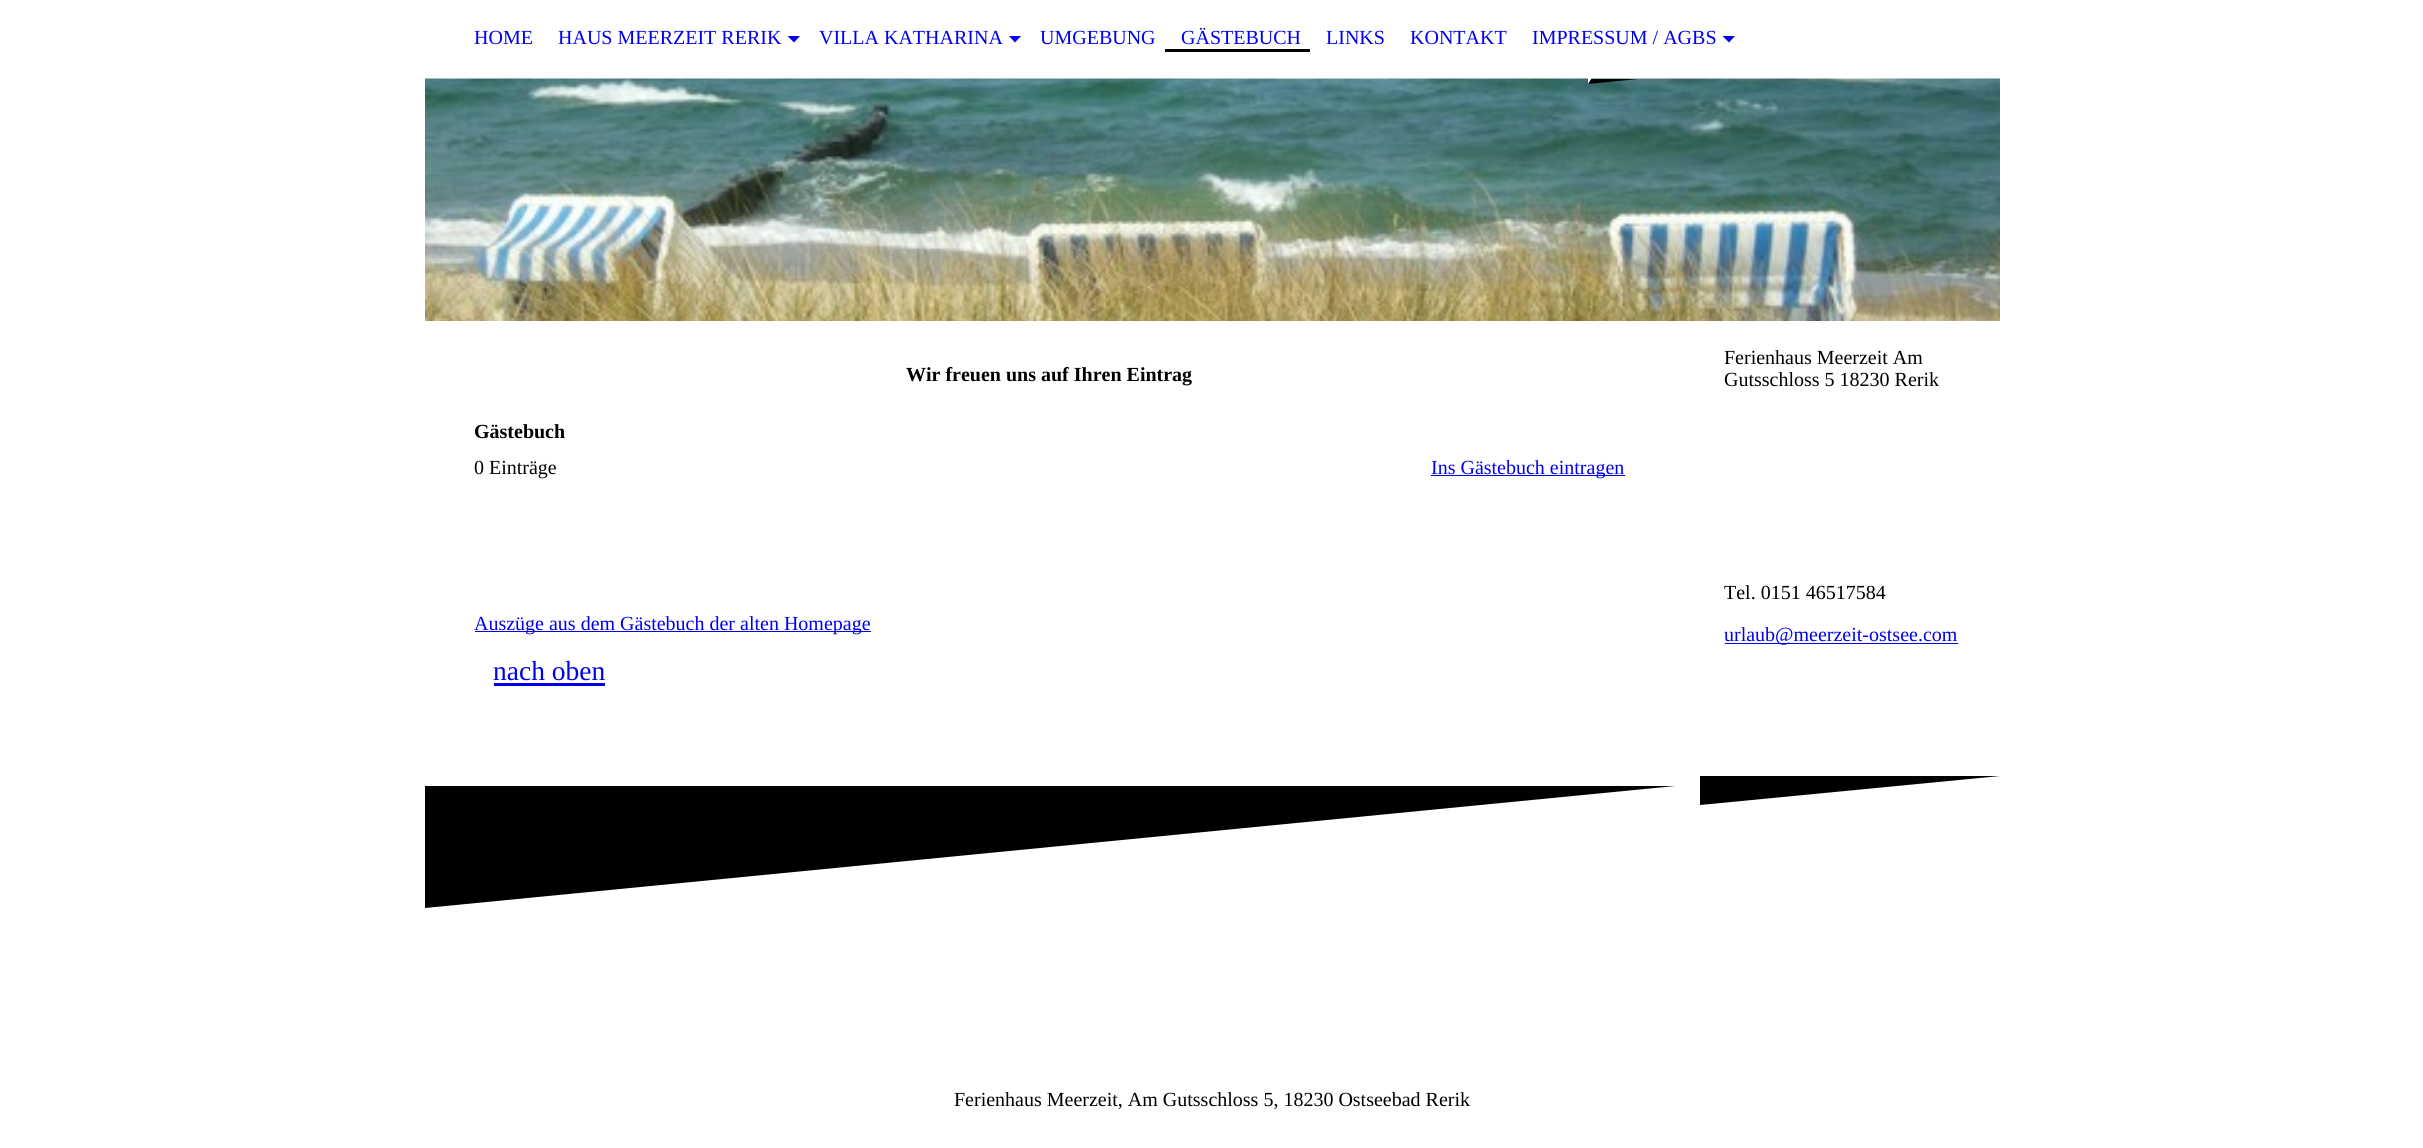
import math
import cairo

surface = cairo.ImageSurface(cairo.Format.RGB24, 2423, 1148)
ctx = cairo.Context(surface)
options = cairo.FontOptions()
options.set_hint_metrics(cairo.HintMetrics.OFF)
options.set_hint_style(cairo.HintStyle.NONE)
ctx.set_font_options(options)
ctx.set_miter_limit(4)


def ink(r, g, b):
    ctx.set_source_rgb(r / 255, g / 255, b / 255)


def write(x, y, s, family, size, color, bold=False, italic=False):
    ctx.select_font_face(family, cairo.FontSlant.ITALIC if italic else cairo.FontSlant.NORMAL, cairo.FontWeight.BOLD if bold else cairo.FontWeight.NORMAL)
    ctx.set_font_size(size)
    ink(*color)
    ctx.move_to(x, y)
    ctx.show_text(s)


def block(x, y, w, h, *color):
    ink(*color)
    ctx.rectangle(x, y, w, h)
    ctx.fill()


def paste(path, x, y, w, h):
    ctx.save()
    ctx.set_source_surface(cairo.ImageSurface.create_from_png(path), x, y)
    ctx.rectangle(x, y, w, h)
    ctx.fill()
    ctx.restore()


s1 = dict(family="Liberation Serif", size=20, color=(0, 0, 238))
s2 = dict(family="Liberation Serif", size=20, color=(0, 0, 0), bold=True)
s3 = dict(family="Liberation Serif", size=20, color=(0, 0, 0))
s4 = dict(family="Liberation Serif", size=27.5, color=(0, 0, 238))

ink(255, 255, 255)
ctx.paint()
paste("pic1.png", 425, 78, 1575, 243)
ink(0, 0, 0)
ctx.new_path()
ctx.move_to(1588, 84)
ctx.line_to(1588, 79)
ctx.line_to(1638, 79)
ctx.close_path()
ctx.fill()
ink(255, 255, 255)
ctx.new_path()
ctx.move_to(1588, 84)
ctx.line_to(1588, -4)
ctx.line_to(1644, -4)
ctx.close_path()
ctx.fill()
write(474, 44, "HOME", **s1)
write(558, 44, "HAUS MEERZEIT RERIK", **s1)
ctx.new_path()
ctx.move_to(787.5, 36)
ctx.line_to(800, 36)
ctx.line_to(794, 42.5)
ctx.close_path()
ctx.fill()
write(819, 44, "VILLA KATHARINA", **s1)
ctx.new_path()
ctx.move_to(1009, 36)
ctx.line_to(1021, 36)
ctx.line_to(1015, 42.5)
ctx.close_path()
ctx.fill()
write(1040, 44, "UMGEBUNG", **s1)
write(1181, 44, "GÄSTEBUCH", **s1)
write(1326, 44, "LINKS", **s1)
write(1410, 44, "KONTAKT", **s1)
write(1532, 44, "IMPRESSUM / AGBS", **s1)
ctx.new_path()
ctx.move_to(1722.5, 36)
ctx.line_to(1735, 36)
ctx.line_to(1729, 42.5)
ctx.close_path()
ctx.fill()
block(1165, 49, 145, 3, 0, 0, 0)
write(906, 381, "Wir freuen uns auf Ihren Eintrag", **s2)
write(474, 438, "Gästebuch", **s2)
write(474, 474, "0 Einträge", **s3)
block(1431, 475, 194, 1, 0, 0, 238)
write(1431, 474, "Ins Gästebuch eintragen", **s1)
block(475, 631, 396, 1, 0, 0, 238)
write(474, 630, "Auszüge aus dem Gästebuch der alten Homepage", **s1)
write(493, 680, "nach oben", **s4)
block(494, 683, 111, 3, 0, 0, 238)
ink(0, 0, 0)
ctx.new_path()
ctx.move_to(425, 908)
ctx.line_to(425, 786)
ctx.line_to(1675, 786)
ctx.close_path()
ctx.fill()
write(1724, 364, "Ferienhaus Meerzeit Am", **s3)
write(1724, 386, "Gutsschloss 5 18230 Rerik", **s3)
write(1724, 599, "Tel. 0151 46517584", **s3)
block(1725, 643, 233, 1, 0, 0, 238)
write(1724, 641, "urlaub@meerzeit-ostsee.com", **s1)
ink(0, 0, 0)
ctx.new_path()
ctx.move_to(1700, 805)
ctx.line_to(1700, 776)
ctx.line_to(2000, 776)
ctx.close_path()
ctx.fill()
write(954, 1106, "Ferienhaus Meerzeit, Am Gutsschloss 5, 18230 Ostseebad Rerik", **s3)
surface.write_to_png("screenshot.png")
